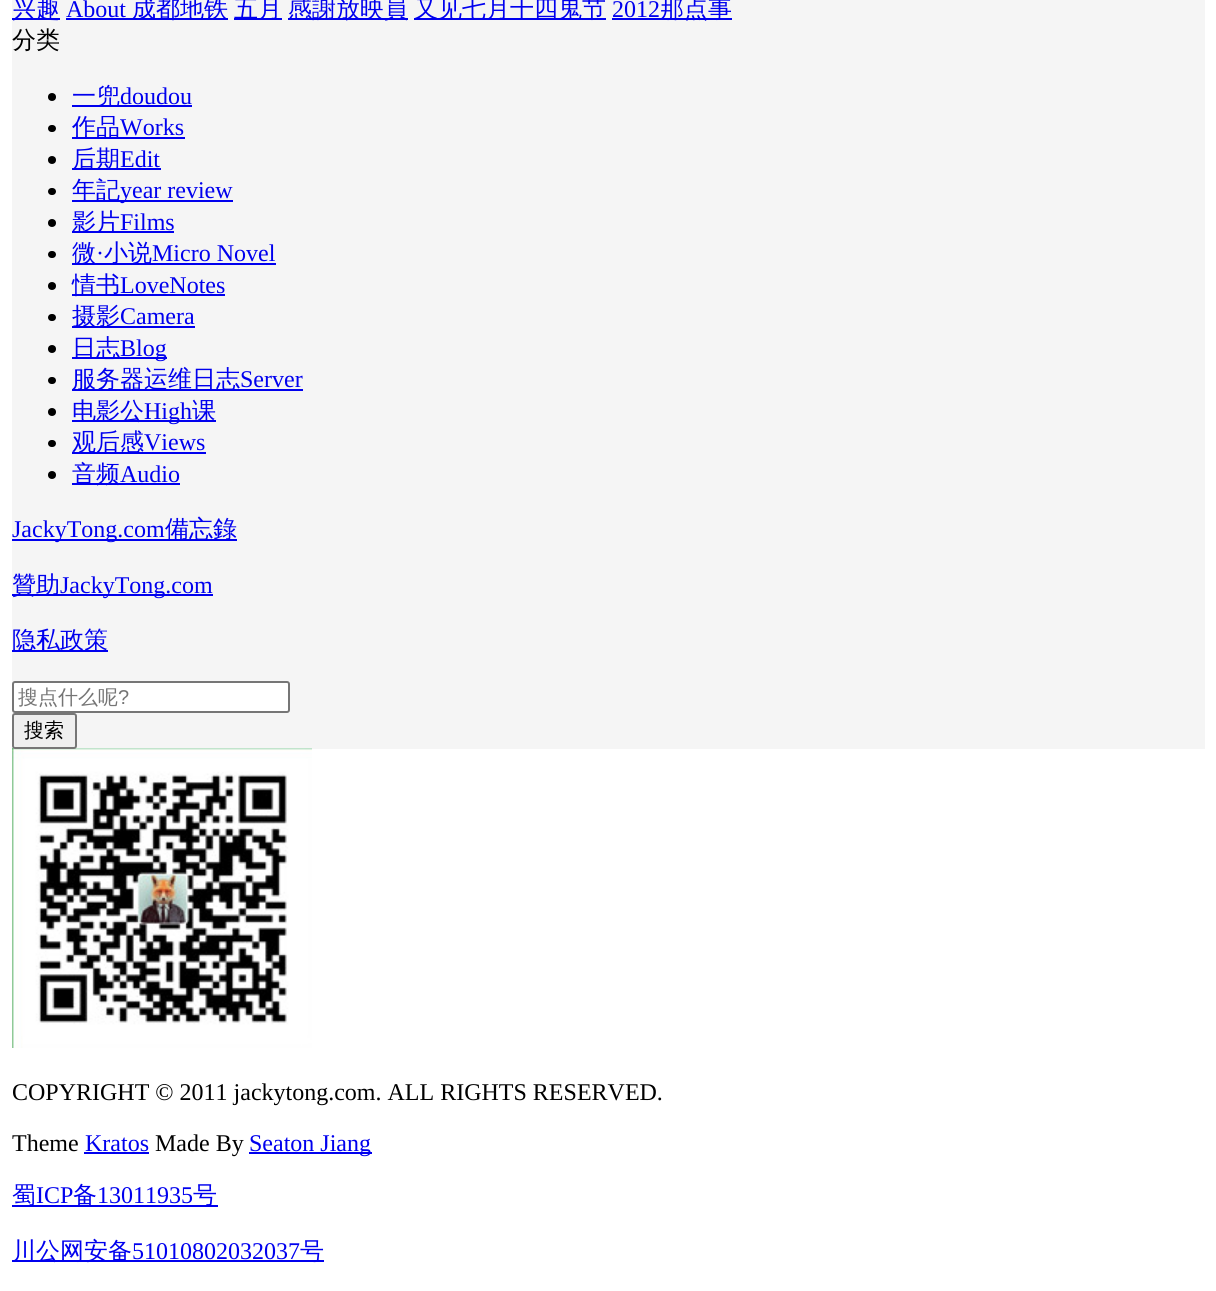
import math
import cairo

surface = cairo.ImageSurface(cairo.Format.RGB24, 1216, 1291)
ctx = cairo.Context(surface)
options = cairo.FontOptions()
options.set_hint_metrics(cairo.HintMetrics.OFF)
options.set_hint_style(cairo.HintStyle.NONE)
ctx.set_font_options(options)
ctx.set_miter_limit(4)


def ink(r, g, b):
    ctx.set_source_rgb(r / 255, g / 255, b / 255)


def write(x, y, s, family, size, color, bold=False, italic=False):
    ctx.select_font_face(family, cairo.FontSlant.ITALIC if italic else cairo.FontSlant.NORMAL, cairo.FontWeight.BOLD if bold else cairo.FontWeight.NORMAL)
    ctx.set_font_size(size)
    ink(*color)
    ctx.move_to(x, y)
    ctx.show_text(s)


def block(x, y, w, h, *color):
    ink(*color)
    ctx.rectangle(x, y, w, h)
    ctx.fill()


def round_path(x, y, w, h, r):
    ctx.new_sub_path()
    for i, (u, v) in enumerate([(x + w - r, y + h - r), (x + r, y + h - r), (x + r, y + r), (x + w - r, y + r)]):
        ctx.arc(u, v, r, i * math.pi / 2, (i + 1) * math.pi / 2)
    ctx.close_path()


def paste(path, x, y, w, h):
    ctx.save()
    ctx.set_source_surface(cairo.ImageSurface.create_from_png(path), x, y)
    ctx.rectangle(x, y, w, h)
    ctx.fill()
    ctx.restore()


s1 = dict(family="WenQuanYi Zen Hei Medium", size=24, color=(0, 0, 238))
s2 = dict(family="Liberation Serif", size=24, color=(0, 0, 238))
s3 = dict(family="WenQuanYi Zen Hei Medium", size=24, color=(0, 0, 0))
s4 = dict(family="WenQuanYi Zen Hei Medium", size=20, color=(117, 117, 117))
s5 = dict(family="Liberation Sans", size=20, color=(117, 117, 117))
s6 = dict(family="WenQuanYi Zen Hei Medium", size=20, color=(0, 0, 0))
s7 = dict(family="Liberation Serif", size=24, color=(0, 0, 0))

ink(255, 255, 255)
ctx.paint()
block(12, 0, 1193, 749, 245, 245, 245)
block(12, 18, 48, 2, 0, 0, 238)
write(12, 17, "兴趣", **s1)
write(66, 17, "About", **s2)
block(66, 18, 162, 2, 0, 0, 238)
write(132, 17, "成都地铁", **s1)
block(234, 18, 48, 2, 0, 0, 238)
write(234, 17, "五月", **s1)
block(288, 18, 120, 2, 0, 0, 238)
write(288, 17, "感謝放映員", **s1)
block(414, 18, 192, 2, 0, 0, 238)
write(414, 17, "又见七月十四鬼节", **s1)
write(612, 17, "2012", **s2)
block(612, 18, 120, 2, 0, 0, 238)
write(660, 17, "那点事", **s1)
write(12, 48, "分类", **s3)
ctx.new_path()
ctx.arc(52, 97, 4, 0, 2 * math.pi)
ctx.fill()
block(72, 105, 120, 2, 0, 0, 238)
write(72, 104, "一兜", **s1)
write(120, 104, "doudou", **s2)
ink(0, 0, 0)
round_path(48, 125, 8, 7, 3.5)
ctx.fill()
block(72, 137, 113, 2, 0, 0, 238)
write(72, 135, "作品", **s1)
write(120, 135, "Works", **s2)
ink(0, 0, 0)
ctx.new_path()
ctx.arc(52, 160, 4, 0, 2 * math.pi)
ctx.fill()
block(72, 168, 89, 2, 0, 0, 238)
write(72, 167, "后期", **s1)
write(120, 167, "Edit", **s2)
ink(0, 0, 0)
round_path(48, 188, 8, 7, 3.5)
ctx.fill()
block(72, 200, 161, 2, 0, 0, 238)
write(72, 198, "年記", **s1)
write(120, 198, "year review", **s2)
ink(0, 0, 0)
ctx.new_path()
ctx.arc(52, 223, 4, 0, 2 * math.pi)
ctx.fill()
block(72, 231, 102, 2, 0, 0, 238)
write(72, 230, "影片", **s1)
write(120, 230, "Films", **s2)
ink(0, 0, 0)
round_path(48, 251, 8, 7, 3.5)
ctx.fill()
block(72, 263, 204, 2, 0, 0, 238)
write(72, 261, "微", **s1)
write(96, 261, "·", **s2)
write(104, 261, "小说", **s1)
write(152, 261, "Micro Novel", **s2)
ink(0, 0, 0)
ctx.new_path()
ctx.arc(52, 286, 4, 0, 2 * math.pi)
ctx.fill()
block(72, 294, 153, 2, 0, 0, 238)
write(72, 293, "情书", **s1)
write(120, 293, "LoveNotes", **s2)
ink(0, 0, 0)
round_path(48, 314, 8, 7, 3.5)
ctx.fill()
block(72, 326, 123, 2, 0, 0, 238)
write(72, 324, "摄影", **s1)
write(120, 324, "Camera", **s2)
ink(0, 0, 0)
ctx.new_path()
ctx.arc(52, 349, 4, 0, 2 * math.pi)
ctx.fill()
block(72, 357, 95, 2, 0, 0, 238)
write(72, 356, "日志", **s1)
write(120, 356, "Blog", **s2)
ink(0, 0, 0)
round_path(48, 377, 8, 7, 3.5)
ctx.fill()
block(72, 389, 231, 2, 0, 0, 238)
write(72, 387, "服务器运维日志", **s1)
write(240, 387, "Server", **s2)
ink(0, 0, 0)
ctx.new_path()
ctx.arc(52, 412, 4, 0, 2 * math.pi)
ctx.fill()
block(72, 420, 144, 2, 0, 0, 238)
write(72, 419, "电影公", **s1)
write(144, 419, "High", **s2)
write(192, 419, "课", **s1)
ink(0, 0, 0)
round_path(48, 440, 8, 7, 3.5)
ctx.fill()
block(72, 452, 134, 2, 0, 0, 238)
write(72, 450, "观后感", **s1)
write(144, 450, "Views", **s2)
ink(0, 0, 0)
ctx.new_path()
ctx.arc(52, 475, 4, 0, 2 * math.pi)
ctx.fill()
block(72, 483, 108, 2, 0, 0, 238)
write(72, 482, "音频", **s1)
write(120, 482, "Audio", **s2)
block(12, 539, 225, 2, 0, 0, 238)
write(12, 537, "JackyTong.com", **s2)
write(165, 537, "備忘錄", **s1)
block(12, 594, 201, 2, 0, 0, 238)
write(12, 593, "贊助", **s1)
write(60, 593, "JackyTong.com", **s2)
block(12, 650, 96, 2, 0, 0, 238)
write(12, 648, "隐私政策", **s1)
ink(255, 255, 255)
round_path(13, 682, 276, 30, 2)
ctx.fill_preserve()
ink(118, 118, 118)
ctx.stroke()
write(18, 704, "搜点什么呢", **s4)
write(118, 704, "?", **s5)
paste("pic1.png", 12, 748, 300, 300)
ink(239, 239, 239)
round_path(13, 714, 63, 34, 2)
ctx.fill_preserve()
ink(118, 118, 118)
ctx.stroke()
write(24, 737, "搜索", **s6)
write(12, 1100, "COPYRIGHT © 2011 jackytong.com. ALL RIGHTS RESERVED.", **s7)
write(12, 1151, "Theme", **s7)
write(85, 1151, "Kratos", **s2)
block(84, 1152, 65, 2, 0, 0, 238)
write(155, 1151, "Made By", **s7)
block(249, 1152, 123, 2, 0, 0, 238)
write(249, 1151, "Seaton Jiang", **s2)
block(12, 1205, 206, 2, 0, 0, 238)
write(12, 1203, "蜀", **s1)
write(36, 1203, "ICP", **s2)
write(73, 1203, "备", **s1)
write(97, 1203, "13011935", **s2)
write(193, 1203, "号", **s1)
block(12, 1260, 312, 2, 0, 0, 238)
write(12, 1259, "川公网安备", **s1)
write(132, 1259, "51010802032037", **s2)
write(300, 1259, "号", **s1)
surface.write_to_png("screenshot.png")
